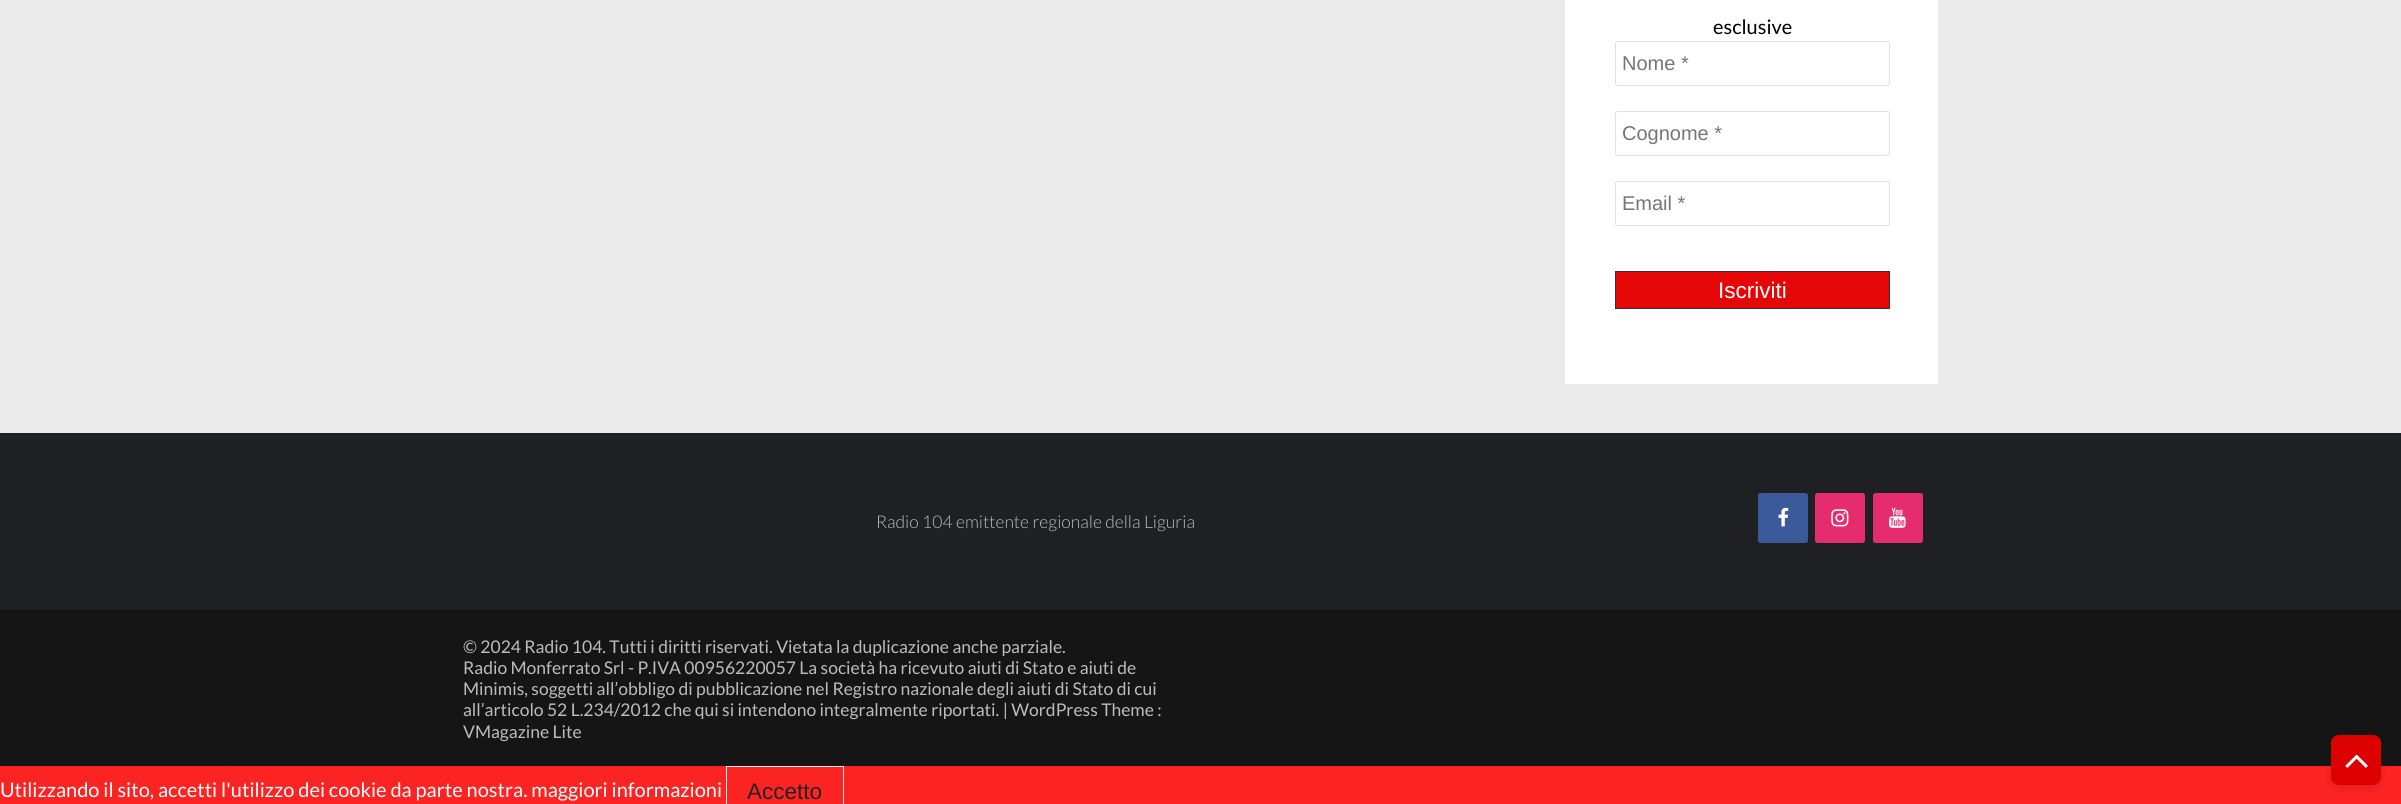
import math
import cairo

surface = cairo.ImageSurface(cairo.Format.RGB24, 2401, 804)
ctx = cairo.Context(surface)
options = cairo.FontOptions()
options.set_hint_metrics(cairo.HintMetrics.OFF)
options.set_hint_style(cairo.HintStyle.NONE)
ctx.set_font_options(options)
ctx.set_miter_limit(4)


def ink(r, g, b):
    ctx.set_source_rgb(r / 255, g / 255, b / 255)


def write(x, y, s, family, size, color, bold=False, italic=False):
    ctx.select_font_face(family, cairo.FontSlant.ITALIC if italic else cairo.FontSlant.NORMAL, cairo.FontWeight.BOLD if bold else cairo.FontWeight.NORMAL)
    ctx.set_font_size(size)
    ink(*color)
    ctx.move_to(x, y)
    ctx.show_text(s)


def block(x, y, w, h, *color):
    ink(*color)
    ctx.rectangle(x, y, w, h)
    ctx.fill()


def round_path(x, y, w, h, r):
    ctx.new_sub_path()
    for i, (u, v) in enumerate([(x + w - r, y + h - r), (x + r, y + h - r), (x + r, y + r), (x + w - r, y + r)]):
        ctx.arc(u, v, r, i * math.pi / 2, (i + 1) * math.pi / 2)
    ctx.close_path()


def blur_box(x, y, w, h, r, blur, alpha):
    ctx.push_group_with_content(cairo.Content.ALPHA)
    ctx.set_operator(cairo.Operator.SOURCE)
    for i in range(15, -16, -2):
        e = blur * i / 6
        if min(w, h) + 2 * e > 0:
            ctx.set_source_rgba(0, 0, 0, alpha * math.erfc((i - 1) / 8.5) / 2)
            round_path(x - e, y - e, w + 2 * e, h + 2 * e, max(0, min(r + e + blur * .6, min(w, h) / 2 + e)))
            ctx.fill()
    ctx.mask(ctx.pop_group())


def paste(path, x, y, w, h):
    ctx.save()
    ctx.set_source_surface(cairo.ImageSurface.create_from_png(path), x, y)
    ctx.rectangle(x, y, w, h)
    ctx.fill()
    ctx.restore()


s1 = dict(family="Lato", size=20, color=(0, 0, 0))
s2 = dict(family="Liberation Sans", size=20, color=(117, 117, 117))
s3 = dict(family="Liberation Sans", size=22.5, color=(255, 255, 255))
s4 = dict(family="Lato Light", size=17.5, color=(188, 188, 189))
s5 = dict(family="Lato", size=17.5, color=(188, 188, 189))
s6 = dict(family="Lato", size=20, color=(255, 255, 255))
s7 = dict(family="Liberation Sans", size=22.5, color=(34, 34, 34))

ink(235, 235, 235)
ctx.paint()
block(1565, 0, 373, 384, 255, 255, 255)
write(1713, 34, "esclusive", **s1)
round_path(1615.5, 41.5, 274, 44, 2)
ink(225, 225, 225)
ctx.set_line_width(1)
ctx.stroke()
write(1622, 70, "Nome *", **s2)
round_path(1615.5, 111.5, 274, 44, 2)
ink(225, 225, 225)
ctx.stroke()
write(1622, 140, "Cognome *", **s2)
round_path(1615.5, 181.5, 274, 44, 2)
ink(225, 225, 225)
ctx.stroke()
write(1622, 210, "Email *", **s2)
ink(229, 7, 7)
ctx.rectangle(1615.5, 271.5, 274, 37)
ctx.fill_preserve()
ink(49, 49, 49)
ctx.stroke()
write(1718, 298, "Iscriviti", **s3)
block(0, 433, 2401, 177, 31, 32, 36)
write(876, 528, "Radio 104 emittente regionale della Liguria", **s4)
ink(60, 90, 153)
round_path(1758, 493, 50, 50, 2.5)
ctx.fill()
paste("pic1.png", 1778, 507, 11, 20)
ink(229, 45, 109)
round_path(1815, 493, 50, 50, 2.5)
ctx.fill()
paste("pic2.png", 1831, 509, 18, 18)
round_path(1873, 493, 50, 50, 2.5)
ctx.fill()
paste("pic3.png", 1889, 507, 17, 21)
block(0, 610, 2401, 156, 21, 21, 21)
write(463, 653, "© 2024 Radio 104. Tutti i diritti riservati. Vietata la duplicazione anche parziale.", **s5)
write(463, 674, "Radio Monferrato Srl - P.IVA 00956220057 La società ha ricevuto aiuti di Stato e aiuti de", **s5)
write(463, 695, "Minimis, soggetti all’obbligo di pubblicazione nel Registro nazionale degli aiuti di Stato di cui", **s5)
write(463, 716, "all’articolo 52 L.234/2012 che qui si intendono integralmente riportati. | WordPress Theme :", **s5)
write(463, 738, "VMagazine Lite", **s5)
block(0, 766, 2401, 38, 252, 35, 35)
ink(0, 0, 0)
blur_box(2331, 738, 50, 50, 8, 4, 0.1)
ink(221, 0, 0)
round_path(2331, 735, 50, 50, 8)
ctx.fill()
paste("pic4.png", 2345, 754, 23, 14)
write(0, 797, "Utilizzando il sito, accetti l'utilizzo dei cookie da parte nostra. maggiori informazioni", **s6)
ctx.rectangle(726.5, 766.5, 117, 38)
ink(238, 238, 238)
ctx.stroke()
write(747, 799, "Accetto", **s7)
surface.write_to_png("screenshot.png")
